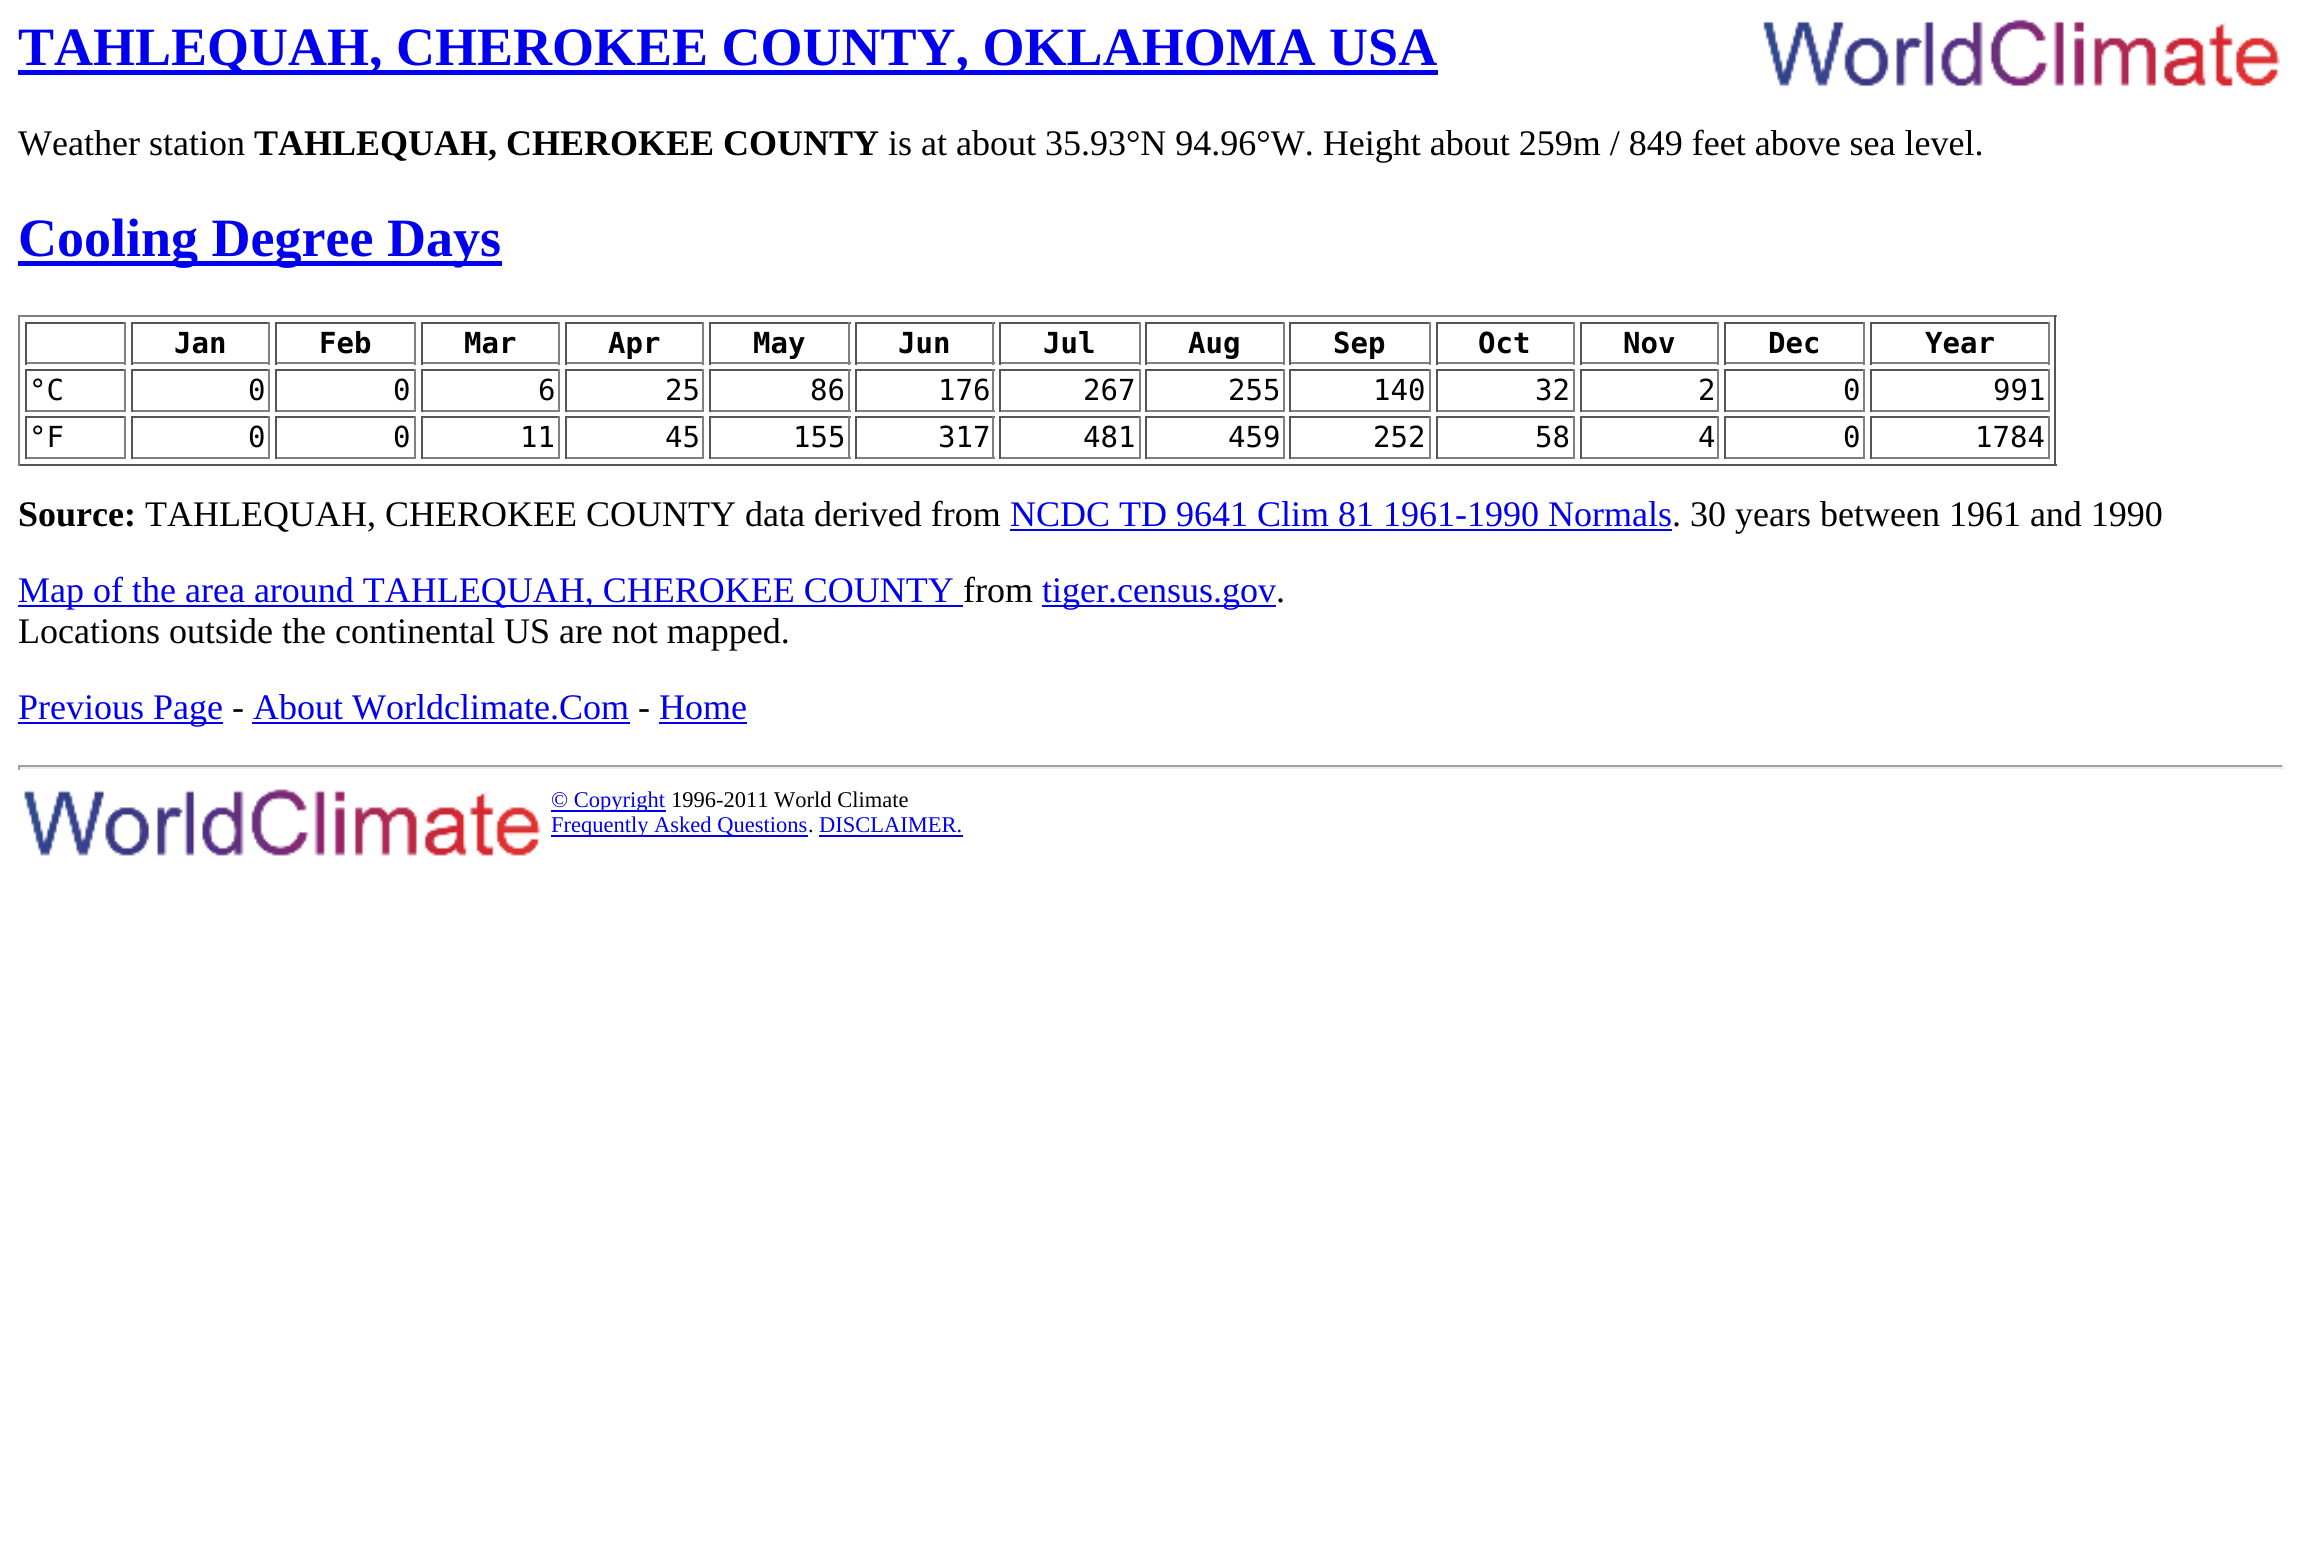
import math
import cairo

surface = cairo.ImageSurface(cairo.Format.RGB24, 2301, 1560)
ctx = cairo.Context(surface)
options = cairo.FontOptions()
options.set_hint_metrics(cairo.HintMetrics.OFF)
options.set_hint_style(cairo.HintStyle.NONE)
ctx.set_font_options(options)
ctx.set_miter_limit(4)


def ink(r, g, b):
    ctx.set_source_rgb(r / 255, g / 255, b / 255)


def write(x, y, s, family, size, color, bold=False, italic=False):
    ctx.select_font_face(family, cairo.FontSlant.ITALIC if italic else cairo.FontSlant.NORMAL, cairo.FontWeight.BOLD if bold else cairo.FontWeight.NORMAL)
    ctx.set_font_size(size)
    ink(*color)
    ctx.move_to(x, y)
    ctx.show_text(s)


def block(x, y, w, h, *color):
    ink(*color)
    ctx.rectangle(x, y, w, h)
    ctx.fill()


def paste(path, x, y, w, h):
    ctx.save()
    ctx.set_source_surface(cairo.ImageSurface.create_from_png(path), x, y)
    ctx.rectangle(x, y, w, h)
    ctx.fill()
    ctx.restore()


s1 = dict(family="Liberation Serif", size=54, color=(0, 0, 238), bold=True)
s2 = dict(family="Liberation Serif", size=36, color=(0, 0, 0))
s3 = dict(family="Liberation Serif", size=36, color=(0, 0, 0), bold=True)
s4 = dict(family="DejaVu Sans Mono", size=29, color=(0, 0, 0), bold=True)
s5 = dict(family="DejaVu Sans Mono", size=29, color=(0, 0, 0))
s6 = dict(family="Liberation Serif", size=36, color=(0, 0, 238))
s7 = dict(family="Liberation Serif", size=22.5, color=(0, 0, 238))
s8 = dict(family="Liberation Serif", size=22.5, color=(0, 0, 0))

ink(255, 255, 255)
ctx.paint()
block(18, 70, 1420, 5, 0, 0, 238)
write(18, 65, "TAHLEQUAH, CHEROKEE COUNTY, OKLAHOMA USA", **s1)
paste("pic1.png", 1763, 19, 517, 68)
write(18, 155, "Weather station", **s2)
write(254, 155, "TAHLEQUAH, CHEROKEE COUNTY", **s3)
write(888, 155, "is at about 35.93°N 94.96°W. Height about 259m / 849 feet above sea level.", **s2)
block(18, 261, 484, 5, 0, 0, 238)
write(18, 256, "Cooling Degree Days", **s1)
block(18, 315, 2039, 2, 128, 128, 128)
block(2054, 315, 2, 151, 85, 85, 85)
block(18, 464, 2039, 2, 85, 85, 85)
block(18, 315, 2, 151, 128, 128, 128)
block(25, 322, 101, 2, 85, 85, 85)
block(124, 322, 2, 43, 128, 128, 128)
block(25, 362, 101, 2, 128, 128, 128)
block(25, 322, 2, 43, 85, 85, 85)
block(131, 322, 139, 2, 85, 85, 85)
block(268, 322, 2, 43, 128, 128, 128)
block(131, 362, 139, 2, 128, 128, 128)
block(131, 322, 2, 43, 85, 85, 85)
write(174, 353, "Jan", **s4)
block(275, 322, 141, 2, 85, 85, 85)
block(414, 322, 2, 43, 128, 128, 128)
block(275, 362, 141, 2, 128, 128, 128)
block(275, 322, 2, 43, 85, 85, 85)
write(319, 353, "Feb", **s4)
block(421, 322, 139, 2, 85, 85, 85)
block(558, 322, 2, 43, 128, 128, 128)
block(421, 362, 139, 2, 128, 128, 128)
block(421, 322, 2, 43, 85, 85, 85)
write(464, 353, "Mar", **s4)
block(565, 322, 139, 2, 85, 85, 85)
block(702, 322, 2, 43, 128, 128, 128)
block(565, 362, 139, 2, 128, 128, 128)
block(565, 322, 2, 43, 85, 85, 85)
write(608, 353, "Apr", **s4)
block(709, 322, 142, 2, 85, 85, 85)
block(848, 322, 2, 43, 128, 128, 128)
block(709, 362, 142, 2, 128, 128, 128)
block(709, 322, 2, 43, 85, 85, 85)
write(753, 353, "May", **s4)
block(855, 322, 140, 2, 85, 85, 85)
block(992, 322, 2, 43, 128, 128, 128)
block(855, 362, 140, 2, 128, 128, 128)
block(855, 322, 2, 43, 85, 85, 85)
write(898, 353, "Jun", **s4)
block(999, 322, 142, 2, 85, 85, 85)
block(1139, 322, 2, 43, 128, 128, 128)
block(999, 362, 142, 2, 128, 128, 128)
block(999, 322, 2, 43, 85, 85, 85)
write(1043, 353, "Jul", **s4)
block(1145, 322, 140, 2, 85, 85, 85)
block(1283, 322, 2, 43, 128, 128, 128)
block(1145, 362, 140, 2, 128, 128, 128)
block(1145, 322, 2, 43, 85, 85, 85)
write(1188, 353, "Aug", **s4)
block(1289, 322, 142, 2, 85, 85, 85)
block(1429, 322, 2, 43, 128, 128, 128)
block(1289, 362, 142, 2, 128, 128, 128)
block(1289, 322, 2, 43, 85, 85, 85)
write(1333, 353, "Sep", **s4)
block(1436, 322, 139, 2, 85, 85, 85)
block(1573, 322, 2, 43, 128, 128, 128)
block(1436, 362, 139, 2, 128, 128, 128)
block(1436, 322, 2, 43, 85, 85, 85)
write(1478, 353, "Oct", **s4)
block(1580, 322, 139, 2, 85, 85, 85)
block(1717, 322, 2, 43, 128, 128, 128)
block(1580, 362, 139, 2, 128, 128, 128)
block(1580, 322, 2, 43, 85, 85, 85)
write(1623, 353, "Nov", **s4)
block(1724, 322, 141, 2, 85, 85, 85)
block(1863, 322, 2, 43, 128, 128, 128)
block(1724, 362, 141, 2, 128, 128, 128)
block(1724, 322, 2, 43, 85, 85, 85)
write(1768, 353, "Dec", **s4)
block(1870, 322, 180, 2, 85, 85, 85)
block(2048, 322, 2, 43, 128, 128, 128)
block(1870, 362, 180, 2, 128, 128, 128)
block(1870, 322, 2, 43, 85, 85, 85)
write(1925, 353, "Year", **s4)
block(25, 369, 101, 2, 85, 85, 85)
block(124, 369, 2, 43, 128, 128, 128)
block(25, 410, 101, 2, 128, 128, 128)
block(25, 369, 2, 43, 85, 85, 85)
write(29, 400, "°C", **s5)
block(131, 369, 139, 2, 85, 85, 85)
block(268, 369, 2, 43, 128, 128, 128)
block(131, 410, 139, 2, 128, 128, 128)
block(131, 369, 2, 43, 85, 85, 85)
write(248, 400, "0", **s5)
block(275, 369, 141, 2, 85, 85, 85)
block(414, 369, 2, 43, 128, 128, 128)
block(275, 410, 141, 2, 128, 128, 128)
block(275, 369, 2, 43, 85, 85, 85)
write(393, 400, "0", **s5)
block(421, 369, 139, 2, 85, 85, 85)
block(558, 369, 2, 43, 128, 128, 128)
block(421, 410, 139, 2, 128, 128, 128)
block(421, 369, 2, 43, 85, 85, 85)
write(538, 400, "6", **s5)
block(565, 369, 139, 2, 85, 85, 85)
block(702, 369, 2, 43, 128, 128, 128)
block(565, 410, 139, 2, 128, 128, 128)
block(565, 369, 2, 43, 85, 85, 85)
write(665, 400, "25", **s5)
block(709, 369, 142, 2, 85, 85, 85)
block(848, 369, 2, 43, 128, 128, 128)
block(709, 410, 142, 2, 128, 128, 128)
block(709, 369, 2, 43, 85, 85, 85)
write(810, 400, "86", **s5)
block(855, 369, 140, 2, 85, 85, 85)
block(992, 369, 2, 43, 128, 128, 128)
block(855, 410, 140, 2, 128, 128, 128)
block(855, 369, 2, 43, 85, 85, 85)
write(938, 400, "176", **s5)
block(999, 369, 142, 2, 85, 85, 85)
block(1139, 369, 2, 43, 128, 128, 128)
block(999, 410, 142, 2, 128, 128, 128)
block(999, 369, 2, 43, 85, 85, 85)
write(1083, 400, "267", **s5)
block(1145, 369, 140, 2, 85, 85, 85)
block(1283, 369, 2, 43, 128, 128, 128)
block(1145, 410, 140, 2, 128, 128, 128)
block(1145, 369, 2, 43, 85, 85, 85)
write(1228, 400, "255", **s5)
block(1289, 369, 142, 2, 85, 85, 85)
block(1429, 369, 2, 43, 128, 128, 128)
block(1289, 410, 142, 2, 128, 128, 128)
block(1289, 369, 2, 43, 85, 85, 85)
write(1373, 400, "140", **s5)
block(1436, 369, 139, 2, 85, 85, 85)
block(1573, 369, 2, 43, 128, 128, 128)
block(1436, 410, 139, 2, 128, 128, 128)
block(1436, 369, 2, 43, 85, 85, 85)
write(1535, 400, "32", **s5)
block(1580, 369, 139, 2, 85, 85, 85)
block(1717, 369, 2, 43, 128, 128, 128)
block(1580, 410, 139, 2, 128, 128, 128)
block(1580, 369, 2, 43, 85, 85, 85)
write(1698, 400, "2", **s5)
block(1724, 369, 141, 2, 85, 85, 85)
block(1863, 369, 2, 43, 128, 128, 128)
block(1724, 410, 141, 2, 128, 128, 128)
block(1724, 369, 2, 43, 85, 85, 85)
write(1843, 400, "0", **s5)
block(1870, 369, 180, 2, 85, 85, 85)
block(2048, 369, 2, 43, 128, 128, 128)
block(1870, 410, 180, 2, 128, 128, 128)
block(1870, 369, 2, 43, 85, 85, 85)
write(1993, 400, "991", **s5)
block(25, 416, 101, 2, 85, 85, 85)
block(124, 416, 2, 43, 128, 128, 128)
block(25, 457, 101, 2, 128, 128, 128)
block(25, 416, 2, 43, 85, 85, 85)
write(29, 447, "°F", **s5)
block(131, 416, 139, 2, 85, 85, 85)
block(268, 416, 2, 43, 128, 128, 128)
block(131, 457, 139, 2, 128, 128, 128)
block(131, 416, 2, 43, 85, 85, 85)
write(248, 447, "0", **s5)
block(275, 416, 141, 2, 85, 85, 85)
block(414, 416, 2, 43, 128, 128, 128)
block(275, 457, 141, 2, 128, 128, 128)
block(275, 416, 2, 43, 85, 85, 85)
write(393, 447, "0", **s5)
block(421, 416, 139, 2, 85, 85, 85)
block(558, 416, 2, 43, 128, 128, 128)
block(421, 457, 139, 2, 128, 128, 128)
block(421, 416, 2, 43, 85, 85, 85)
write(520, 447, "11", **s5)
block(565, 416, 139, 2, 85, 85, 85)
block(702, 416, 2, 43, 128, 128, 128)
block(565, 457, 139, 2, 128, 128, 128)
block(565, 416, 2, 43, 85, 85, 85)
write(665, 447, "45", **s5)
block(709, 416, 142, 2, 85, 85, 85)
block(848, 416, 2, 43, 128, 128, 128)
block(709, 457, 142, 2, 128, 128, 128)
block(709, 416, 2, 43, 85, 85, 85)
write(793, 447, "155", **s5)
block(855, 416, 140, 2, 85, 85, 85)
block(992, 416, 2, 43, 128, 128, 128)
block(855, 457, 140, 2, 128, 128, 128)
block(855, 416, 2, 43, 85, 85, 85)
write(938, 447, "317", **s5)
block(999, 416, 142, 2, 85, 85, 85)
block(1139, 416, 2, 43, 128, 128, 128)
block(999, 457, 142, 2, 128, 128, 128)
block(999, 416, 2, 43, 85, 85, 85)
write(1083, 447, "481", **s5)
block(1145, 416, 140, 2, 85, 85, 85)
block(1283, 416, 2, 43, 128, 128, 128)
block(1145, 457, 140, 2, 128, 128, 128)
block(1145, 416, 2, 43, 85, 85, 85)
write(1228, 447, "459", **s5)
block(1289, 416, 142, 2, 85, 85, 85)
block(1429, 416, 2, 43, 128, 128, 128)
block(1289, 457, 142, 2, 128, 128, 128)
block(1289, 416, 2, 43, 85, 85, 85)
write(1373, 447, "252", **s5)
block(1436, 416, 139, 2, 85, 85, 85)
block(1573, 416, 2, 43, 128, 128, 128)
block(1436, 457, 139, 2, 128, 128, 128)
block(1436, 416, 2, 43, 85, 85, 85)
write(1535, 447, "58", **s5)
block(1580, 416, 139, 2, 85, 85, 85)
block(1717, 416, 2, 43, 128, 128, 128)
block(1580, 457, 139, 2, 128, 128, 128)
block(1580, 416, 2, 43, 85, 85, 85)
write(1698, 447, "4", **s5)
block(1724, 416, 141, 2, 85, 85, 85)
block(1863, 416, 2, 43, 128, 128, 128)
block(1724, 457, 141, 2, 128, 128, 128)
block(1724, 416, 2, 43, 85, 85, 85)
write(1843, 447, "0", **s5)
block(1870, 416, 180, 2, 85, 85, 85)
block(2048, 416, 2, 43, 128, 128, 128)
block(1870, 457, 180, 2, 128, 128, 128)
block(1870, 416, 2, 43, 85, 85, 85)
write(1975, 447, "1784", **s5)
write(18, 526, "Source:", **s3)
write(145, 526, "TAHLEQUAH, CHEROKEE COUNTY data derived from", **s2)
write(1010, 526, "NCDC TD 9641 Clim 81 1961-1990 Normals", **s6)
block(1010, 529, 662, 2, 0, 0, 238)
write(1672, 526, ". 30 years between 1961 and 1990", **s2)
block(18, 605, 945, 2, 0, 0, 238)
write(18, 602, "Map of the area around TAHLEQUAH, CHEROKEE COUNTY", **s6)
write(963, 602, "from", **s2)
block(1042, 605, 234, 2, 0, 0, 238)
write(1042, 602, "tiger.census.gov", **s6)
write(1276, 602, ".", **s2)
write(18, 643, "Locations outside the continental US are not mapped.", **s2)
block(18, 722, 205, 2, 0, 0, 238)
write(18, 719, "Previous Page", **s6)
write(232, 719, "-", **s2)
write(253, 719, "About Worldclimate.Com", **s6)
block(252, 722, 378, 2, 0, 0, 238)
write(638, 719, "-", **s2)
write(659, 719, "Home", **s6)
block(659, 722, 88, 2, 0, 0, 238)
block(18, 765, 2266, 2, 159, 159, 159)
block(2282, 765, 2, 5, 238, 238, 238)
block(18, 767, 2266, 2, 238, 238, 238)
block(18, 765, 2, 5, 159, 159, 159)
paste("pic2.png", 24, 789, 517, 67)
block(551, 810, 115, 2, 0, 0, 238)
write(551, 807, "© Copyright", **s7)
write(671, 807, "1996-2011 World Climate", **s8)
block(551, 835, 257, 2, 0, 0, 238)
write(551, 832, "Frequently Asked Questions", **s7)
write(808, 832, ".", **s8)
block(819, 835, 144, 2, 0, 0, 238)
write(819, 832, "DISCLAIMER.", **s7)
surface.write_to_png("screenshot.png")
